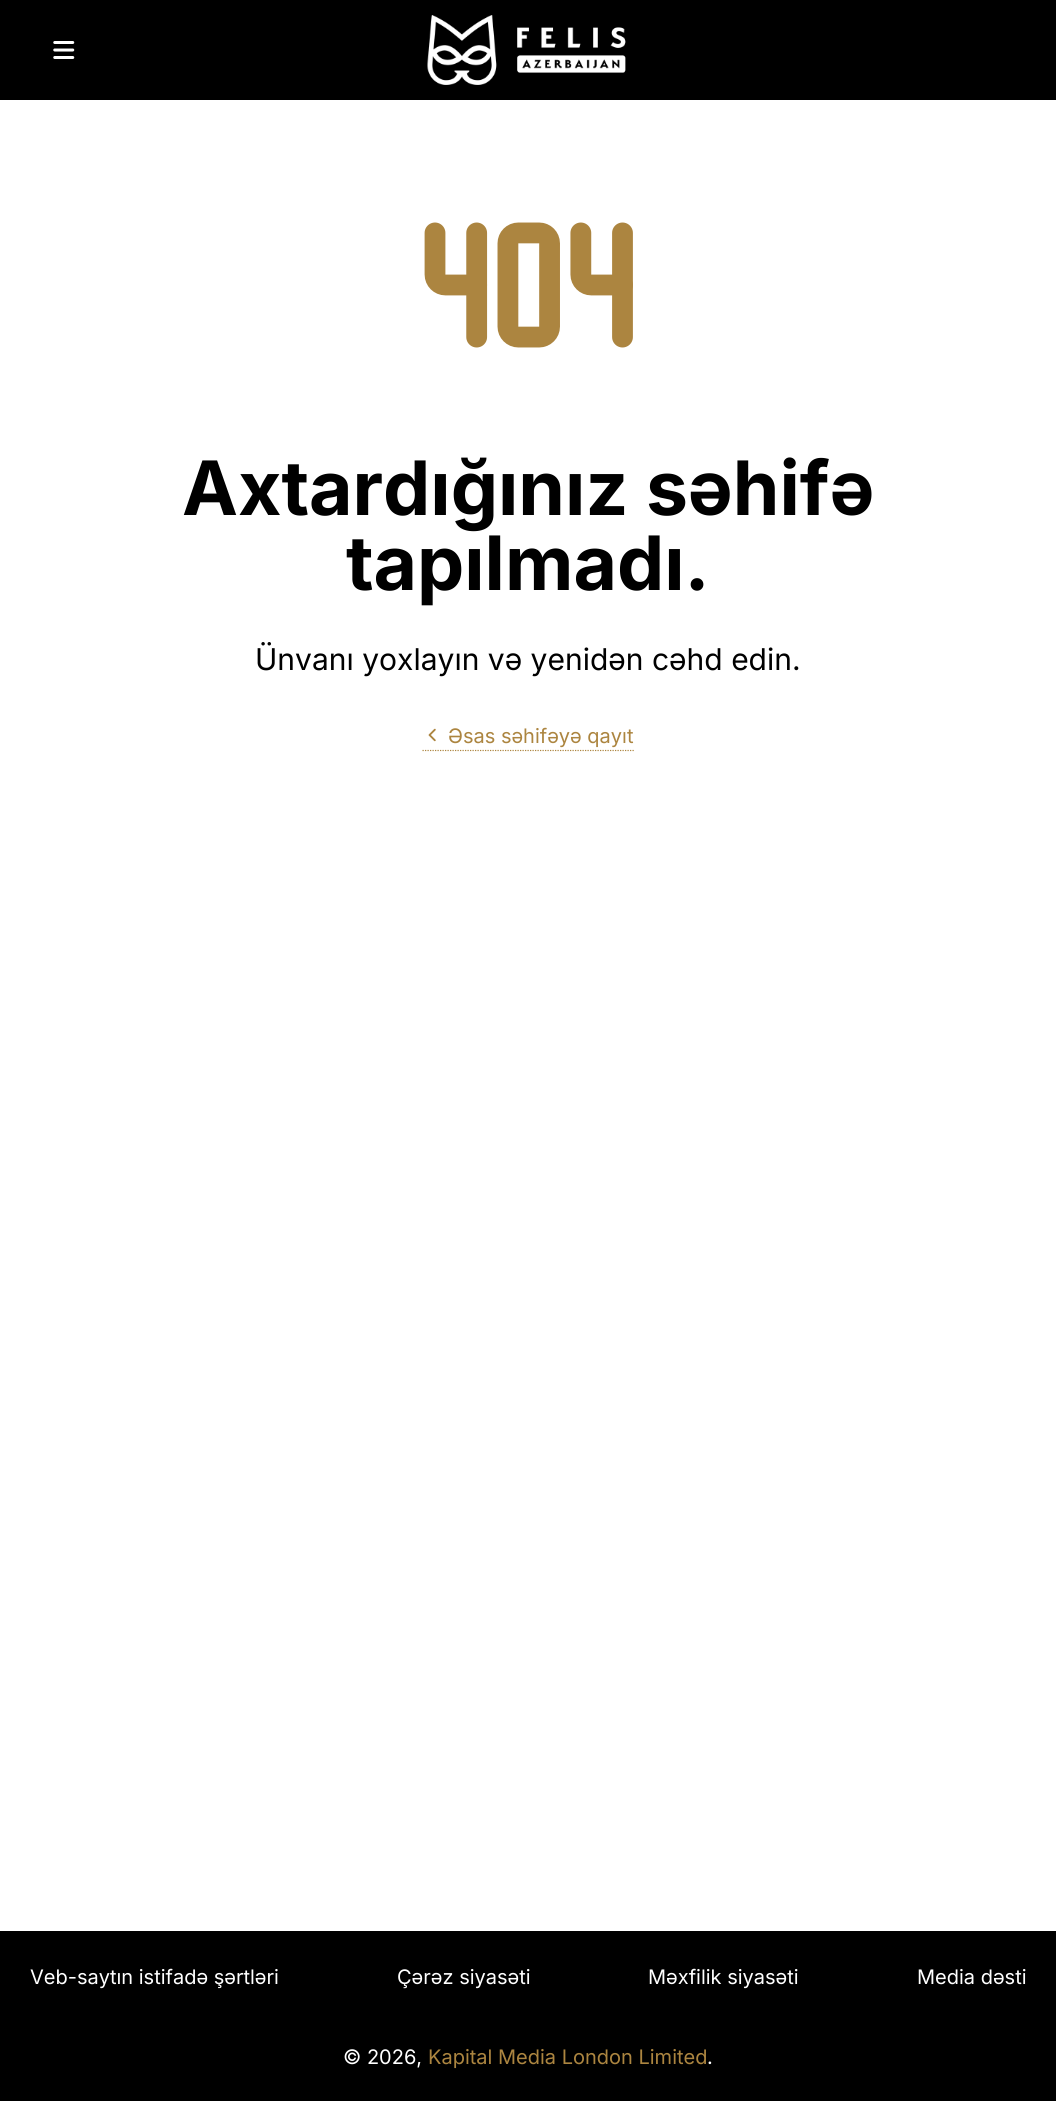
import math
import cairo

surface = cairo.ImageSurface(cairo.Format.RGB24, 1056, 2101)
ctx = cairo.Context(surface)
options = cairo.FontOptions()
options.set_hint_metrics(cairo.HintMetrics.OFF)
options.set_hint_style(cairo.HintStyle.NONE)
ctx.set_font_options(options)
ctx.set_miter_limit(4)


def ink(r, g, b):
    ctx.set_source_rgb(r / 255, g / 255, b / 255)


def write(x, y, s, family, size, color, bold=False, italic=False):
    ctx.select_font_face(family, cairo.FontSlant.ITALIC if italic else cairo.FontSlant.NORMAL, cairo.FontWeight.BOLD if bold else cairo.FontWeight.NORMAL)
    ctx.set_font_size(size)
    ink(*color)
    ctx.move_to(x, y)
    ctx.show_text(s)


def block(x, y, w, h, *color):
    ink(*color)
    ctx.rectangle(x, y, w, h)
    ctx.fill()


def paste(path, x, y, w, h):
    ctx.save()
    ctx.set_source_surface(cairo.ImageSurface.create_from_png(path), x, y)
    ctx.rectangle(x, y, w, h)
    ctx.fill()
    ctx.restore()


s1 = dict(family="Inter", size=75, color=(0, 0, 0), bold=True)
s2 = dict(family="Inter", size=30, color=(0, 0, 0))
s3 = dict(family="Inter", size=20, color=(172, 133, 64))
s4 = dict(family="Inter", size=20, color=(255, 255, 255))

ink(255, 255, 255)
ctx.paint()
block(0, 0, 1056, 100, 0, 0, 0)
paste("pic1.png", 53, 41, 22, 18)
paste("pic2.png", 427, 15, 199, 70)
paste("pic3.png", 424, 222, 209, 126)
write(182, 515, "Axtardığınız səhifə", **s1)
write(346, 590, "tapılmadı.", **s1)
write(255, 670, "Ünvanı yoxlayın və yenidən cəhd edin.", **s2)
ctx.new_path()
ctx.move_to(422.5, 750.5)
ctx.line_to(634, 750.5)
ink(172, 133, 64)
ctx.set_line_width(1.2)
ctx.set_dash([1.25, 1.25])
ctx.stroke()
paste("pic4.png", 428, 728, 8, 14)
write(448, 743, "Əsas səhifəyə qayıt", **s3)
block(0, 1931, 1056, 170, 0, 0, 0)
write(30, 1984, "Veb-saytın istifadə şərtləri", **s4)
write(397, 1984, "Çərəz siyasəti", **s4)
write(648, 1984, "Məxfilik siyasəti", **s4)
write(917, 1984, "Media dəsti", **s4)
write(343, 2064, "© 2026,", **s4)
write(428, 2064, "Kapital Media London Limited", **s3)
write(707, 2064, ".", **s4)
surface.write_to_png("screenshot.png")
